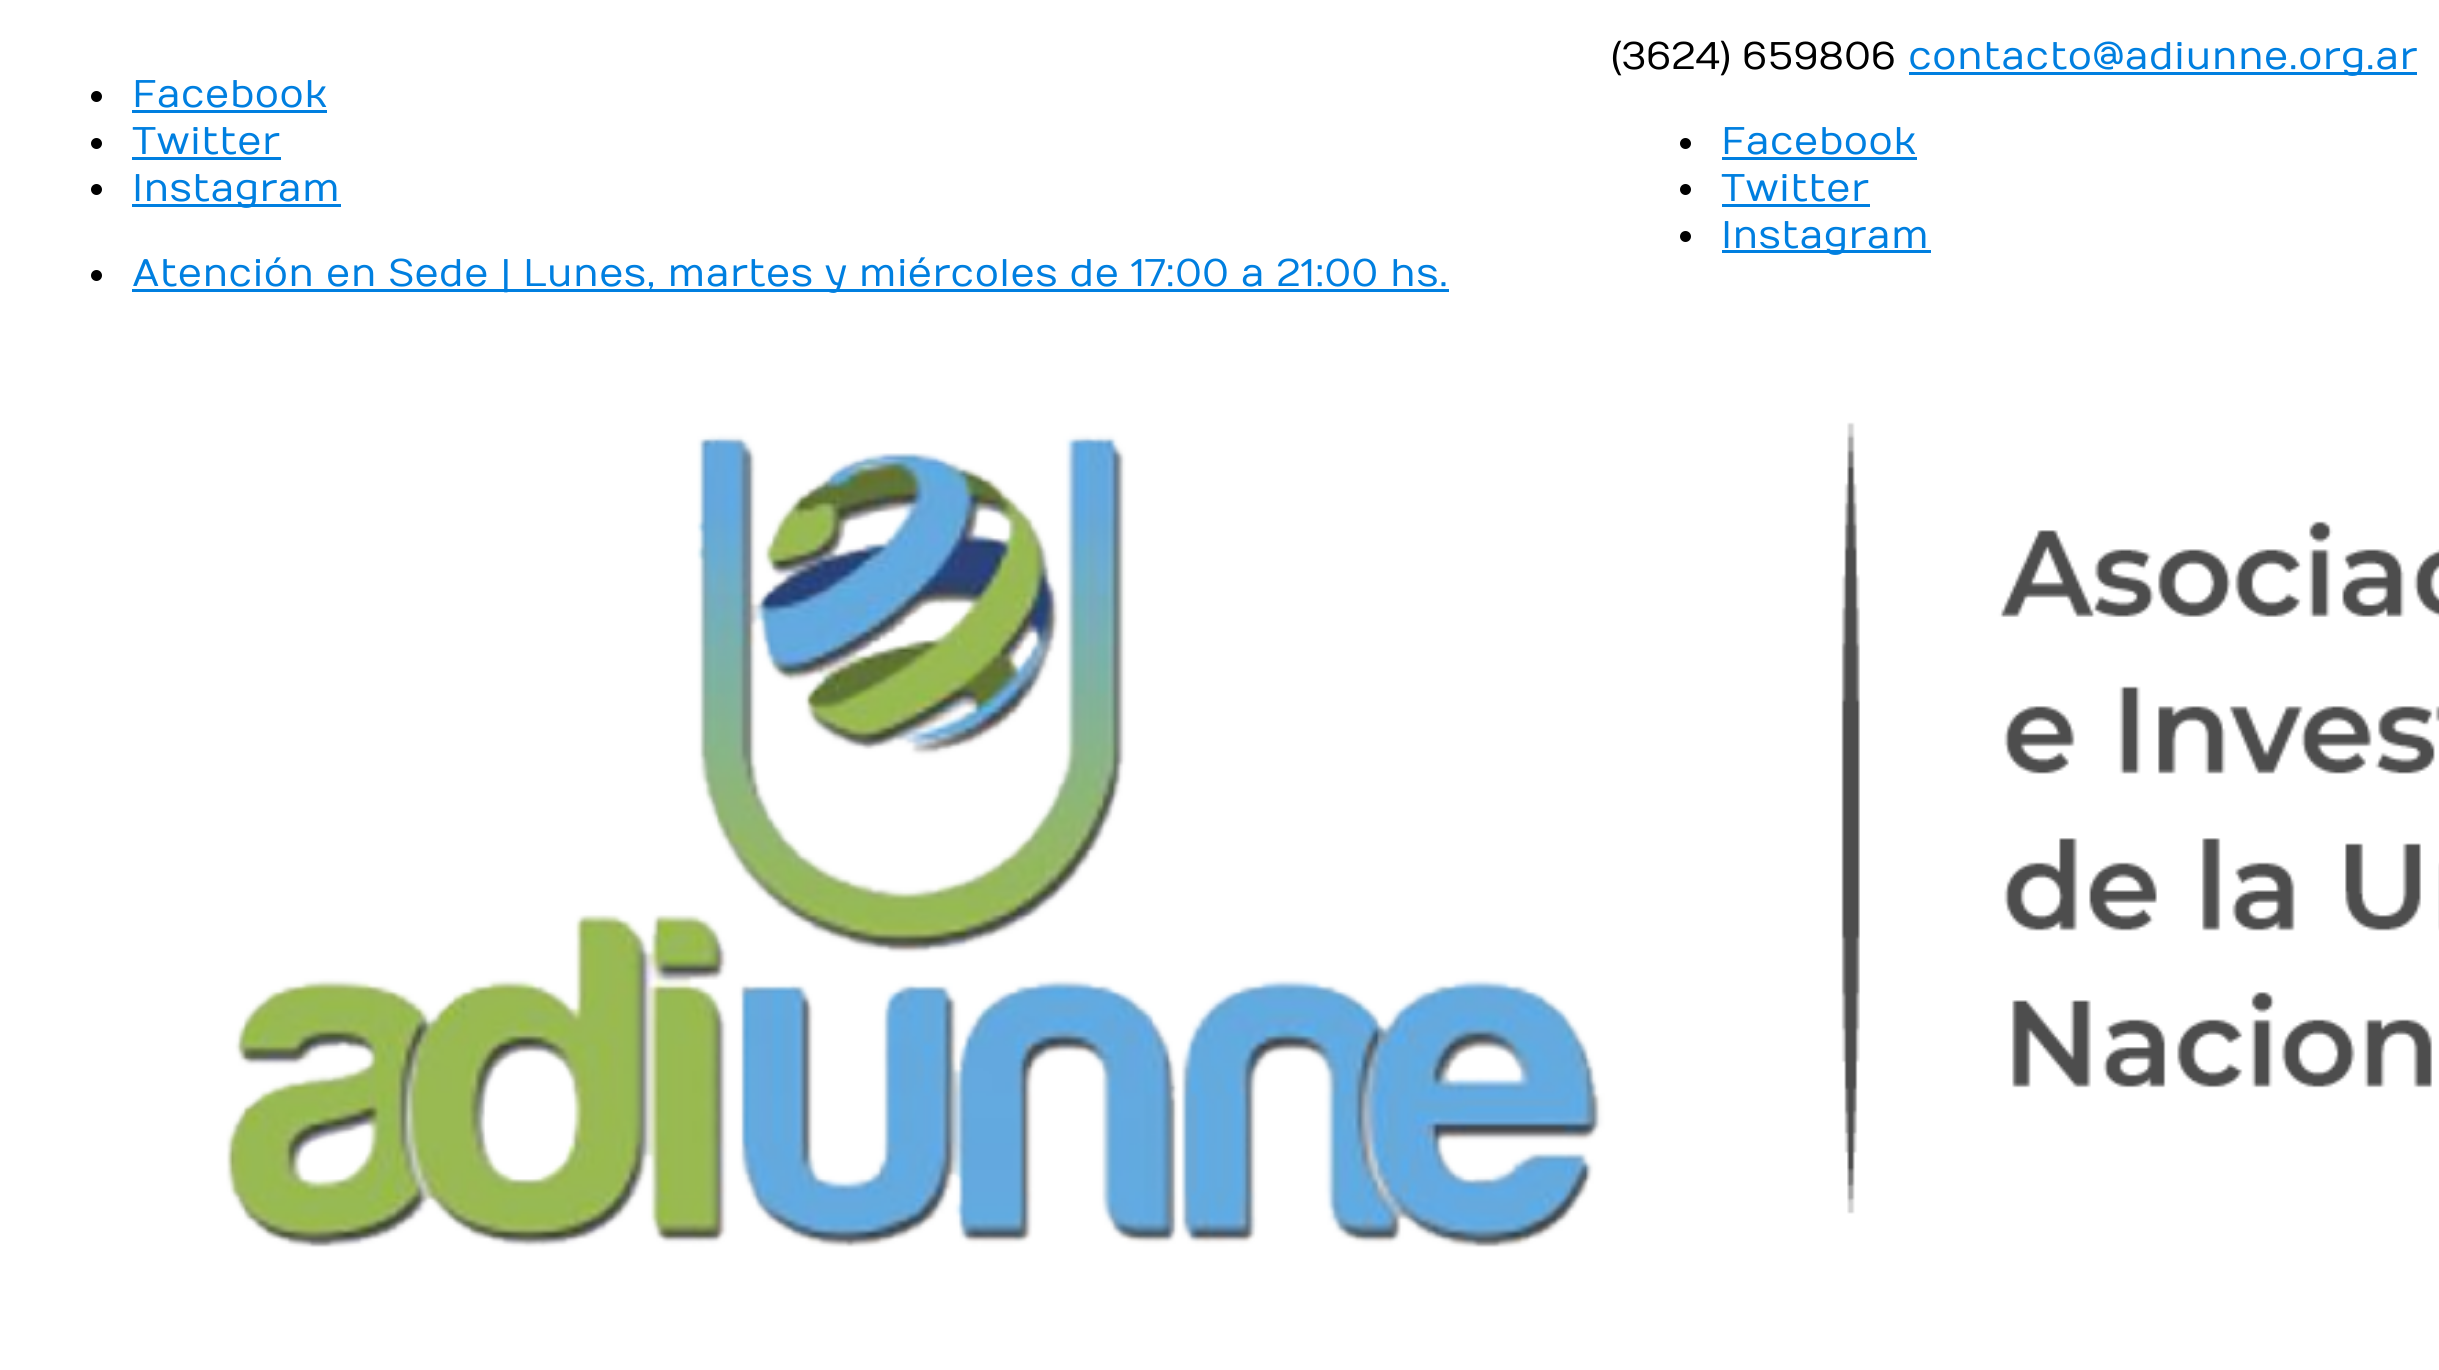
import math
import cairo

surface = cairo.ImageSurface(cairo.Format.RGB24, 2439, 1370)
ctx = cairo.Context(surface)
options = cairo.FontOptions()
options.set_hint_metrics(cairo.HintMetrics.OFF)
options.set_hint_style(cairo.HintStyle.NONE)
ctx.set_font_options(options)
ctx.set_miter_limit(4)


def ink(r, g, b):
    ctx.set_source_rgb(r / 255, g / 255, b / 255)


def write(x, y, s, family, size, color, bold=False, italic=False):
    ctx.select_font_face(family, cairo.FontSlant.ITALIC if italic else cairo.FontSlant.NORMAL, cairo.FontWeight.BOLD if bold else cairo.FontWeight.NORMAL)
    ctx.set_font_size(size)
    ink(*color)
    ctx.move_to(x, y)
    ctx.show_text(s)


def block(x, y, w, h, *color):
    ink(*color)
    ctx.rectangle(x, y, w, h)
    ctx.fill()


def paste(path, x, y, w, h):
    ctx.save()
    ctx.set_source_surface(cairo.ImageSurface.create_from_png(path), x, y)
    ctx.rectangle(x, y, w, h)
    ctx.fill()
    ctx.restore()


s1 = dict(family="Numans", size=38.5, color=(0, 127, 224))
s2 = dict(family="Numans", size=38.5, color=(0, 0, 0))

ink(255, 255, 255)
ctx.paint()
ink(0, 0, 0)
ctx.arc(96.5, 96.5, 5.5, 0, 2 * math.pi)
ctx.fill()
write(132, 107, "Facebook", **s1)
block(132, 110, 195, 3, 0, 127, 224)
ink(0, 0, 0)
ctx.new_path()
ctx.arc(96.5, 143.5, 5.5, 0, 2 * math.pi)
ctx.fill()
write(132, 154, "Twitter", **s1)
block(132, 157, 149, 3, 0, 127, 224)
ink(0, 0, 0)
ctx.new_path()
ctx.arc(96.5, 189.5, 5.5, 0, 2 * math.pi)
ctx.fill()
block(132, 204, 209, 3, 0, 127, 224)
write(132, 201, "Instagram", **s1)
ink(0, 0, 0)
ctx.new_path()
ctx.arc(96.5, 275.5, 5.5, 0, 2 * math.pi)
ctx.fill()
block(132, 289, 1317, 3, 0, 127, 224)
write(132, 286, "Atención en Sede | Lunes, martes y miércoles de 17:00 a 21:00 hs.", **s1)
write(1611, 69, "(3624) 659806", **s2)
block(1909, 72, 508, 3, 0, 127, 224)
write(1908, 69, "contacto@adiunne.org.ar", **s1)
ink(0, 0, 0)
ctx.new_path()
ctx.arc(1685.5, 143.5, 5.5, 0, 2 * math.pi)
ctx.fill()
write(1721, 154, "Facebook", **s1)
block(1722, 157, 195, 3, 0, 127, 224)
ink(0, 0, 0)
ctx.new_path()
ctx.arc(1685.5, 189.5, 5.5, 0, 2 * math.pi)
ctx.fill()
write(1721, 201, "Twitter", **s1)
block(1722, 204, 148, 3, 0, 127, 224)
ink(0, 0, 0)
ctx.new_path()
ctx.arc(1685.5, 236.5, 5.5, 0, 2 * math.pi)
ctx.fill()
block(1722, 250, 209, 3, 0, 127, 224)
write(1721, 248, "Instagram", **s1)
paste("pic1.png", 226, 422, 2213, 826)
surface.write_to_png("screenshot.png")
